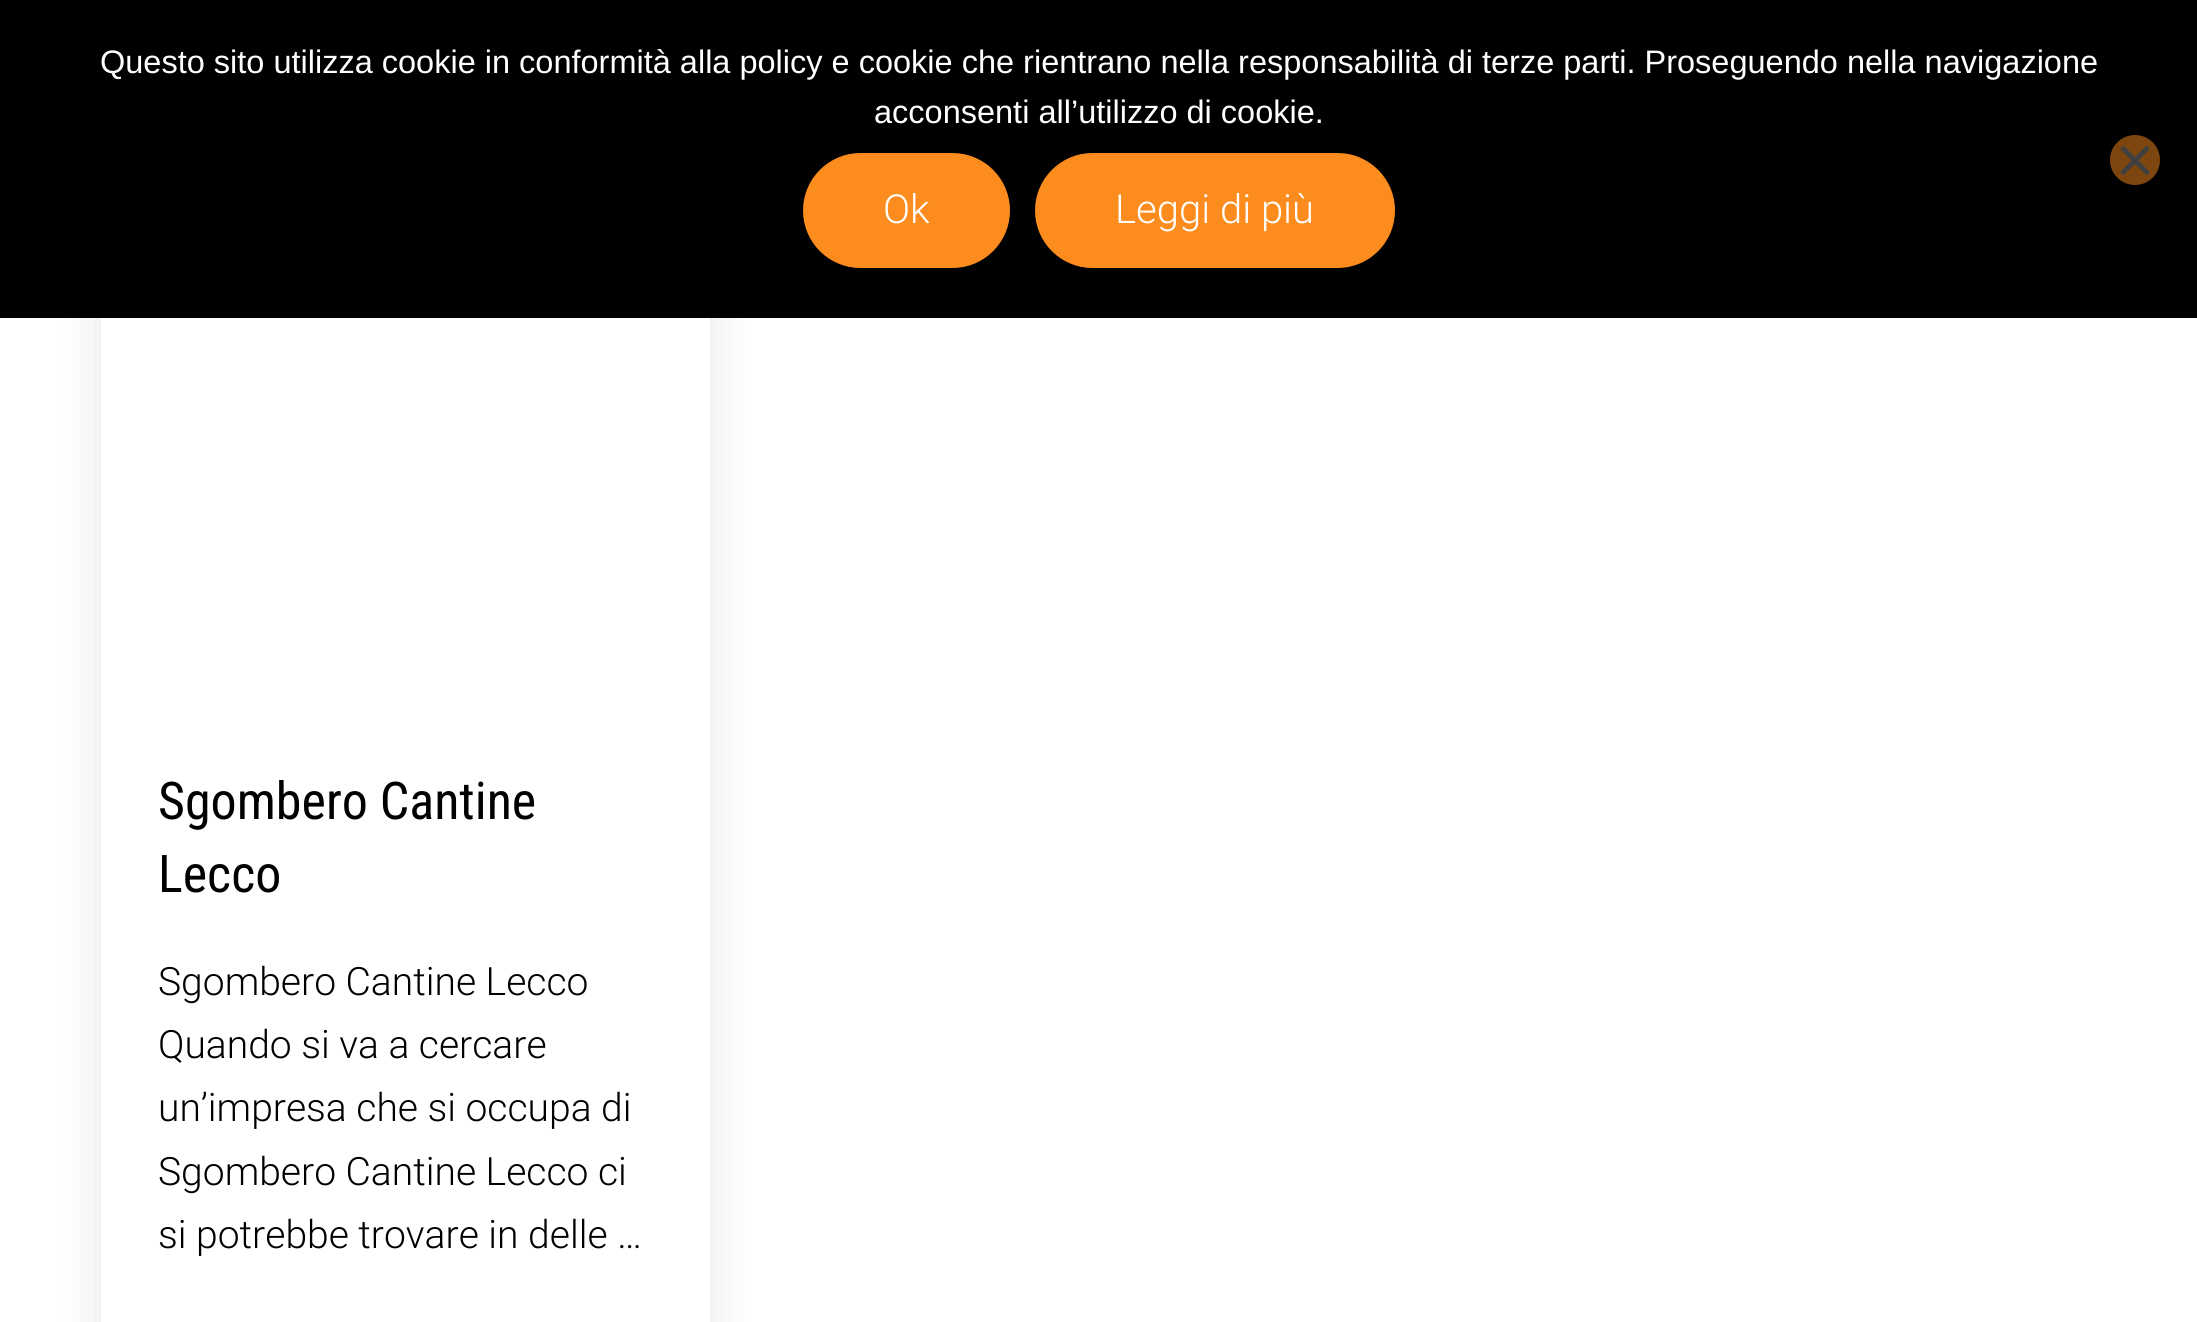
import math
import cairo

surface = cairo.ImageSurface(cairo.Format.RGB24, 2197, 1322)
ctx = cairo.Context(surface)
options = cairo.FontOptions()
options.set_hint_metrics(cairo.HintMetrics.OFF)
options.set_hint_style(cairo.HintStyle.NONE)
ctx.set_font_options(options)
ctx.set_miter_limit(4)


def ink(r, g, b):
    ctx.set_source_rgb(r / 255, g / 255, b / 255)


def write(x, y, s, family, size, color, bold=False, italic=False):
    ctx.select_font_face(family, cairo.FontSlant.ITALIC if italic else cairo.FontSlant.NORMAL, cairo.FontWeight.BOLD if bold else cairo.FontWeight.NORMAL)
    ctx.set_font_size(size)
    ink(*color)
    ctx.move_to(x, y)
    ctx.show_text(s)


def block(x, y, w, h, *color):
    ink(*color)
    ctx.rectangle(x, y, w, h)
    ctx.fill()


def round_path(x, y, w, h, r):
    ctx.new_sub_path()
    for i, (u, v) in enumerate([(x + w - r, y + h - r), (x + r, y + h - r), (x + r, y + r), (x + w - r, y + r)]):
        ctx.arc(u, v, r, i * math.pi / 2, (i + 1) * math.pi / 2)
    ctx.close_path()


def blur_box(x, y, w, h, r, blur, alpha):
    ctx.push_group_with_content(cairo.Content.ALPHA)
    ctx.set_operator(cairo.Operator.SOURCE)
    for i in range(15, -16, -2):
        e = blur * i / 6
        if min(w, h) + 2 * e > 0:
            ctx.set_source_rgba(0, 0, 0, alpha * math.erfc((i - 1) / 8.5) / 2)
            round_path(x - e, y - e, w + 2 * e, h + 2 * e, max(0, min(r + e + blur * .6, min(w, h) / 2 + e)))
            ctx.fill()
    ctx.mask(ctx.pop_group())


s1 = dict(family="Liberation Sans", size=32.5, color=(255, 255, 255))
s2 = dict(family="Roboto Light", size=40, color=(255, 255, 255))
s3 = dict(family="Roboto Condensed", size=52, color=(0, 0, 0))
s4 = dict(family="Roboto Light", size=39, color=(0, 0, 0))

ink(255, 255, 255)
ctx.paint()
ink(10, 20, 30)
blur_box(98, 263, 615, 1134, 10, 21.5, 0.1)
block(101, 318, 609, 1004, 255, 255, 255)
ctx.rectangle(99.5, 254.5, 612, 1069)
ink(243, 243, 244)
ctx.set_line_width(3)
ctx.stroke()
block(0, 0, 2197, 318, 0, 0, 0)
write(100, 73, "Questo sito utilizza cookie in conformità alla policy e cookie che rientrano nella responsabilità di terze parti. Proseguendo nella navigazione", **s1)
write(874, 123, "acconsenti all’utilizzo di cookie.", **s1)
ink(126, 70, 15)
ctx.new_path()
ctx.arc(2135, 160, 25, 0, 2 * math.pi)
ctx.fill()
ink(64, 64, 64)
ctx.new_path()
ctx.move_to(2146.5, 145.5)
ctx.line_to(2150, 149)
ctx.line_to(2123.5, 175.5)
ctx.line_to(2120, 172)
ctx.close_path()
ctx.fill()
ctx.new_path()
ctx.move_to(2120, 149)
ctx.line_to(2123.5, 145.5)
ctx.line_to(2150, 172)
ctx.line_to(2146.5, 175.5)
ctx.close_path()
ctx.fill()
ink(252, 140, 30)
round_path(803, 153, 207, 115, 57.5)
ctx.fill()
write(883, 223, "Ok", **s2)
ink(252, 140, 30)
round_path(1035, 153, 360, 115, 57.5)
ctx.fill()
write(1115, 223, "Leggi di più", **s2)
write(158, 819, "Sgombero Cantine", **s3)
write(158, 892, "Lecco", **s3)
write(158, 995, "Sgombero Cantine Lecco", **s4)
write(158, 1058, "Quando si va a cercare", **s4)
write(158, 1121, "un’impresa che si occupa di", **s4)
write(158, 1185, "Sgombero Cantine Lecco ci", **s4)
write(158, 1248, "si potrebbe trovare in delle …", **s4)
surface.write_to_png("screenshot.png")
